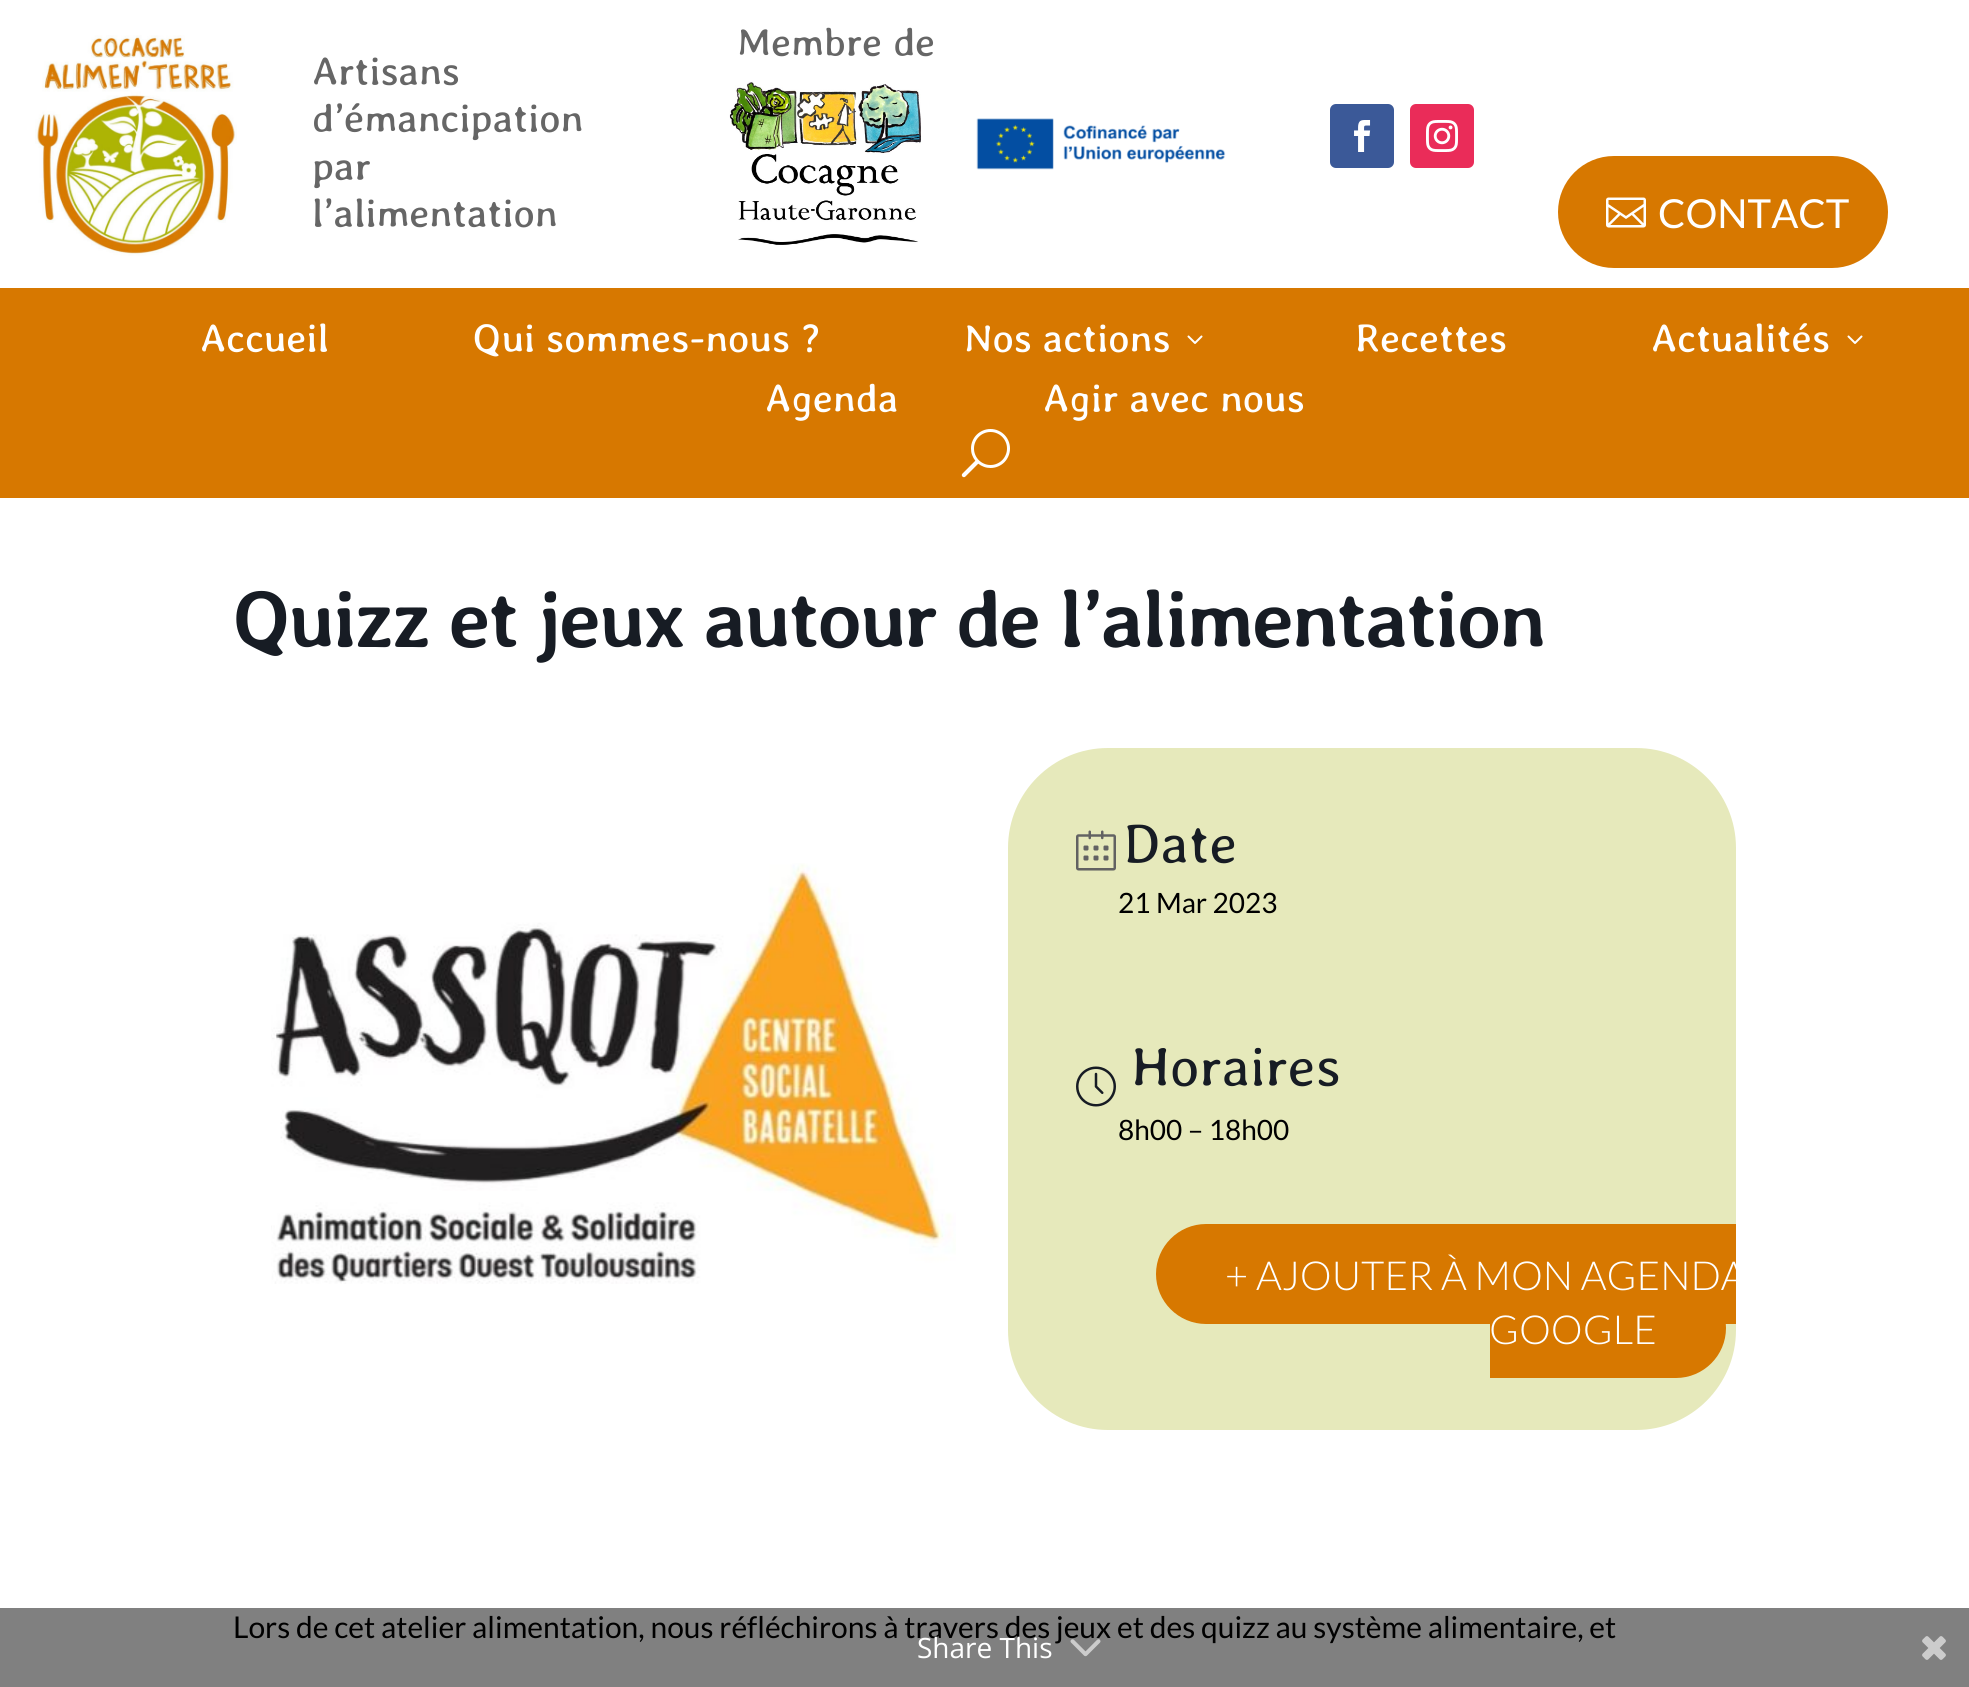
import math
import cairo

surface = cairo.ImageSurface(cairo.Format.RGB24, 1969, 1687)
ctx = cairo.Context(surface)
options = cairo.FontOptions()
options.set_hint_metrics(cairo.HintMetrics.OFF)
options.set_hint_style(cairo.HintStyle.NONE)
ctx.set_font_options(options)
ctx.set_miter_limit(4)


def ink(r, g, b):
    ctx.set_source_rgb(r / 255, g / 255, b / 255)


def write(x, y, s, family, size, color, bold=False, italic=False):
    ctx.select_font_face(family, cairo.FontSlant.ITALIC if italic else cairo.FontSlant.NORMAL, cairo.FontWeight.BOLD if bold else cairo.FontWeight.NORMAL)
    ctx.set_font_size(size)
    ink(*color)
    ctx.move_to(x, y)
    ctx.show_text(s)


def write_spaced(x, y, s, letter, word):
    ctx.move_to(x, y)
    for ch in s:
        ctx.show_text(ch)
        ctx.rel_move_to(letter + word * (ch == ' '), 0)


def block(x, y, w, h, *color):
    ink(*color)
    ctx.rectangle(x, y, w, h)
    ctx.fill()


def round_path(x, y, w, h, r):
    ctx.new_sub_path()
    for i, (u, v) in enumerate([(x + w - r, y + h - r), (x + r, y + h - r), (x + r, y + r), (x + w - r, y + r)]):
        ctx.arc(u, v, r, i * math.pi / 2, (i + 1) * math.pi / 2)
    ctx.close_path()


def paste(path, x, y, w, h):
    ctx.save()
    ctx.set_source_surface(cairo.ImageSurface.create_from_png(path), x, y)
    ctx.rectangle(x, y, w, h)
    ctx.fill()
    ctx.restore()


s1 = dict(family="Averia Libre", size=40, color=(102, 102, 102))
s2 = dict(family="Lato", size=40, color=(255, 255, 255))
s3 = dict(family="Averia Libre", size=40, color=(255, 255, 255))
s4 = dict(family="Averia Libre Light", size=56, color=(23, 28, 36))
s5 = dict(family="Lato", size=28, color=(0, 0, 0))
s6 = dict(family="Lato Light", size=40, color=(255, 255, 255))
s7 = dict(family="Lato", size=30, color=(0, 0, 0))
s8 = dict(family="Open Sans", size=28, color=(255, 255, 255))

ink(255, 255, 255)
ctx.paint()
block(0, 1608, 1969, 79, 128, 128, 128)
paste("pic1.png", 35, 35, 202, 221)
write(312, 85, "Artisans", **s1)
write(312, 132, "d’émancipation", **s1)
write(312, 180, "par", **s1)
write(312, 227, "l’alimentation", **s1)
write(737, 56, "Membre de", **s1)
paste("pic2.png", 729, 81, 192, 164)
paste("pic3.png", 976, 118, 250, 52)
ink(59, 89, 152)
round_path(1330, 104, 64, 64, 6)
ctx.fill()
paste("pic4.png", 1354, 120, 17, 32)
ink(234, 44, 89)
round_path(1410, 104, 64, 64, 6)
ctx.fill()
paste("pic5.png", 1426, 120, 32, 32)
ink(215, 120, 0)
round_path(1563, 161, 320, 102, 51)
ctx.fill_preserve()
ctx.set_line_width(10)
ctx.stroke()
paste("pic6.png", 1606, 197, 40, 31)
write(1658, 228, "CONTACT", **s2)
block(0, 288, 1969, 210, 215, 120, 0)
write(200, 352, "Accueil", **s3)
write(473, 352, "Qui sommes-nous ?", **s3)
write(964, 352, "Nos actions", **s3)
paste("pic7.png", 1187, 335, 16, 9)
write(1355, 352, "Recettes", **s3)
write(1651, 352, "Actualités", **s3)
paste("pic7.png", 1847, 335, 16, 9)
write(765, 412, "Agenda", **s3)
write(1043, 412, "Agir avec nous", **s3)
paste("pic8.png", 961, 429, 49, 49)
ctx.select_font_face("Averia Libre", cairo.FontSlant.NORMAL, cairo.FontWeight.BOLD)
ctx.set_font_size(80)
ink(23, 28, 36)
write_spaced(233, 647, "Quizz et jeux autour de l’alimentation", -2, 0)
paste("pic9.png", 271, 863, 685, 421)
ink(230, 233, 187)
round_path(1008, 748, 728, 682, 100)
ctx.fill()
paste("pic10.png", 1076, 830, 40, 41)
write(1123, 863, "Date", **s4)
write(1118, 913, "21 Mar 2023", **s5)
paste("pic11.png", 1076, 1066, 40, 41)
write(1131, 1086, "Horaires", **s4)
write(1118, 1140, "8h00 – 18h00", **s5)
ink(215, 120, 0)
ctx.new_path()
ctx.move_to(1206, 1224)
ctx.line_to(1736, 1224)
ctx.line_to(1736, 1324)
ctx.line_to(1206, 1324)
ctx.curve_to(1178.5, 1324, 1156, 1301.5, 1156, 1274)
ctx.curve_to(1156, 1246.5, 1178.5, 1224, 1206, 1224)
ctx.close_path()
ctx.fill()
ctx.new_path()
ctx.move_to(1490, 1278)
ctx.line_to(1676, 1278)
ctx.curve_to(1703.5, 1278, 1726, 1300.5, 1726, 1328)
ctx.curve_to(1726, 1355.5, 1703.5, 1378, 1676, 1378)
ctx.line_to(1490, 1378)
ctx.close_path()
ctx.fill()
ctx.save()
round_path(1008, 748, 728, 682, 100)
ctx.clip()
write(1225, 1290, "+ AJOUTER À MON AGENDA", **s6)
ctx.restore()
write(1489, 1344, "GOOGLE", **s6)
write(233, 1638, "Lors de cet atelier alimentation, nous réfléchirons à travers des jeux et des quizz au système alimentaire, et", **s7)
write(917, 1658, "Share This", **s8)
paste("pic12.png", 1070, 1639, 31, 18)
paste("pic13.png", 1922, 1636, 24, 24)
surface.write_to_png("screenshot.png")
